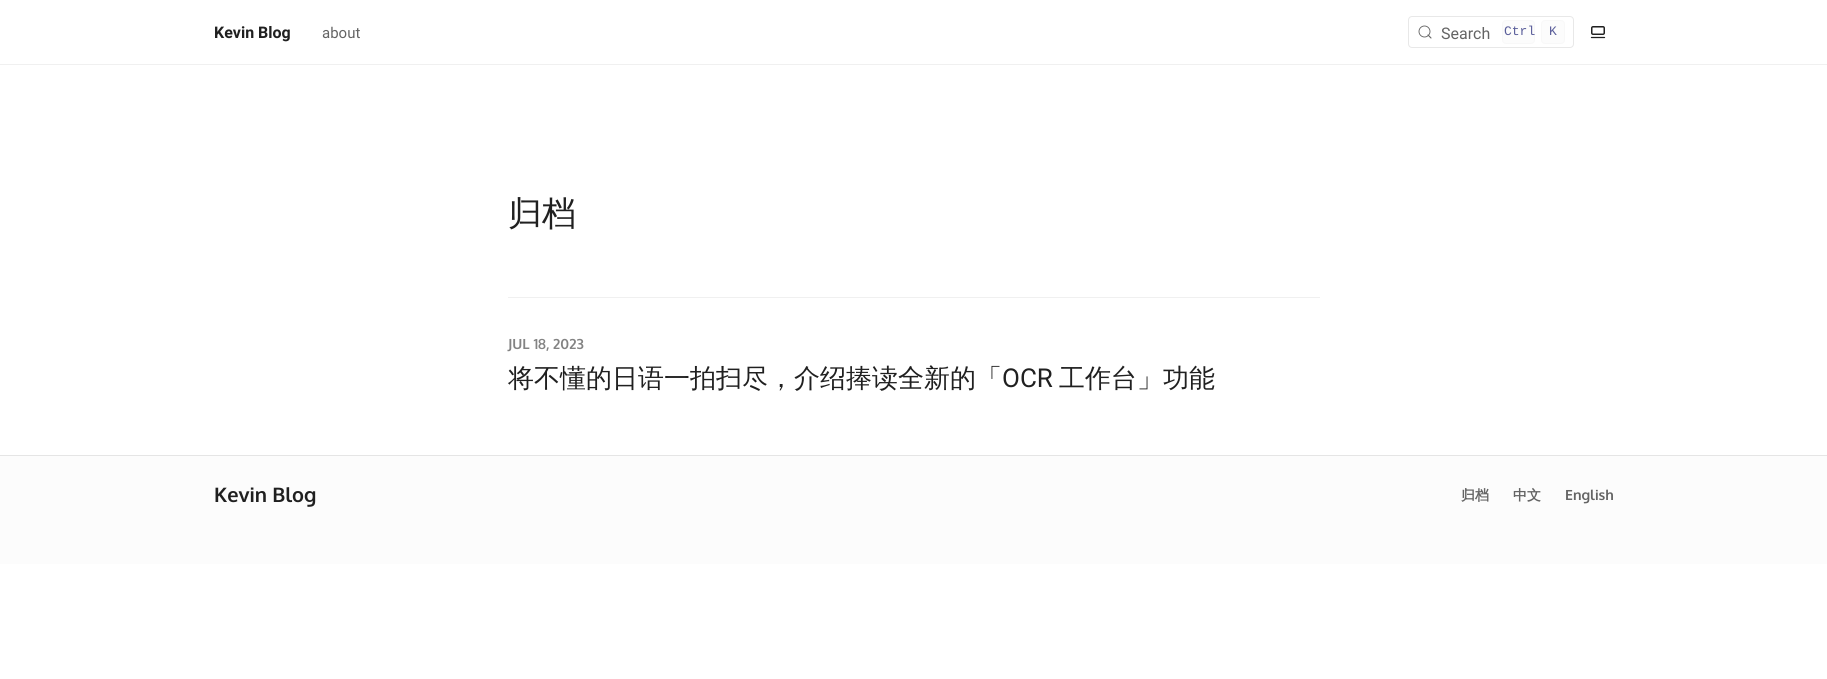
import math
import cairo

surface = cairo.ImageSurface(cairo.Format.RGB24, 1827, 679)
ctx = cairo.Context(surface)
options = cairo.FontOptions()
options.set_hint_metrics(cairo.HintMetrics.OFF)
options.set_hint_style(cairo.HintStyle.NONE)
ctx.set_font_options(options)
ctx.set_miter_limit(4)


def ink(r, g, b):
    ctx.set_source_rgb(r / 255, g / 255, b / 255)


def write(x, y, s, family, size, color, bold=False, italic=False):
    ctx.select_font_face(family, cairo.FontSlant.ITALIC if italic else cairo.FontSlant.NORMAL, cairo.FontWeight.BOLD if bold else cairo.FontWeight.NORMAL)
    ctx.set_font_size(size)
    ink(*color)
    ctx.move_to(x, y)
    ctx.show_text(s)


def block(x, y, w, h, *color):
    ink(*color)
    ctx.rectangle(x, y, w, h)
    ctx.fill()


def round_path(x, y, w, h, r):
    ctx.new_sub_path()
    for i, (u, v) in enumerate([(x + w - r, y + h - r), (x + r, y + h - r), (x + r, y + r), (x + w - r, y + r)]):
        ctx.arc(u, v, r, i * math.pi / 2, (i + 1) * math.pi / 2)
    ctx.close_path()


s1 = dict(family="Roboto", size=16, color=(32, 32, 32), bold=True)
s2 = dict(family="Roboto", size=15, color=(100, 100, 100))
s3 = dict(family="Roboto", size=16, color=(100, 100, 100))
s4 = dict(family="Liberation Mono", size=13, color=(90, 94, 154))
s5 = dict(family="WenQuanYi Zen Hei Medium", size=34, color=(32, 32, 32))
s6 = dict(family="Oxygen", size=14, color=(131, 131, 131), bold=True)
s7 = dict(family="WenQuanYi Zen Hei Medium", size=26, color=(32, 32, 32))
s8 = dict(family="Roboto", size=26, color=(32, 32, 32))
s9 = dict(family="Oxygen", size=20, color=(32, 32, 32), bold=True)
s10 = dict(family="WenQuanYi Zen Hei", size=14, color=(100, 100, 100), bold=True)
s11 = dict(family="Oxygen", size=14, color=(100, 100, 100), bold=True)

ink(255, 255, 255)
ctx.paint()
block(0, 64, 1827, 1, 240, 240, 240)
write(214, 38, "Kevin Blog", **s1)
write(322, 38, "about", **s2)
round_path(1408.5, 16.5, 165, 31, 3.5)
ink(232, 232, 232)
ctx.set_line_width(1)
ctx.stroke()
ctx.arc(1424.5, 31.5, 5.5, 0, 2 * math.pi)
ink(100, 100, 100)
ctx.set_line_width(0.9)
ctx.stroke()
ctx.new_path()
ctx.move_to(1431, 38)
ctx.line_to(1428, 35)
ctx.set_line_width(1.1)
ctx.set_line_cap(cairo.LineCap.ROUND)
ctx.set_line_join(cairo.LineJoin.ROUND)
ctx.stroke()
write(1441, 39, "Search", **s3)
ink(252, 252, 252)
round_path(1502.5, 20.5, 32, 23, 3.5)
ctx.fill_preserve()
ink(248, 248, 248)
ctx.set_line_width(1)
ctx.set_line_cap(cairo.LineCap.BUTT)
ctx.set_line_join(cairo.LineJoin.MITER)
ctx.stroke()
write(1504, 35, "Ctrl", **s4)
ink(252, 252, 252)
round_path(1541.5, 20.5, 23, 23, 3.5)
ctx.fill_preserve()
ink(248, 248, 248)
ctx.stroke()
write(1549, 35, "K", **s4)
round_path(1591.75, 26.75, 12.5, 7.5, 1.25)
ink(32, 32, 32)
ctx.set_line_width(1.5)
ctx.stroke()
ctx.new_path()
ctx.move_to(1591.5, 37.5)
ctx.line_to(1604.5, 37.5)
ctx.set_line_width(1.3)
ctx.set_line_cap(cairo.LineCap.ROUND)
ctx.set_line_join(cairo.LineJoin.ROUND)
ctx.stroke()
write(508, 225, "归档", **s5)
block(508, 297, 812, 1, 240, 240, 240)
write(508, 349, "JUL 18, 2023", **s6)
write(508, 387, "将不懂的日语一拍扫尽，介绍捧读全新的「", **s7)
write(1002, 387, "OCR", **s8)
write(1059, 387, "工作台」功能", **s7)
block(0, 456, 1827, 108, 252, 252, 252)
block(0, 455, 1827, 1, 229, 229, 229)
write(214, 502, "Kevin Blog", **s9)
write(1461, 500, "归档", **s10)
write(1513, 500, "中文", **s10)
write(1565, 500, "English", **s11)
surface.write_to_png("screenshot.png")
